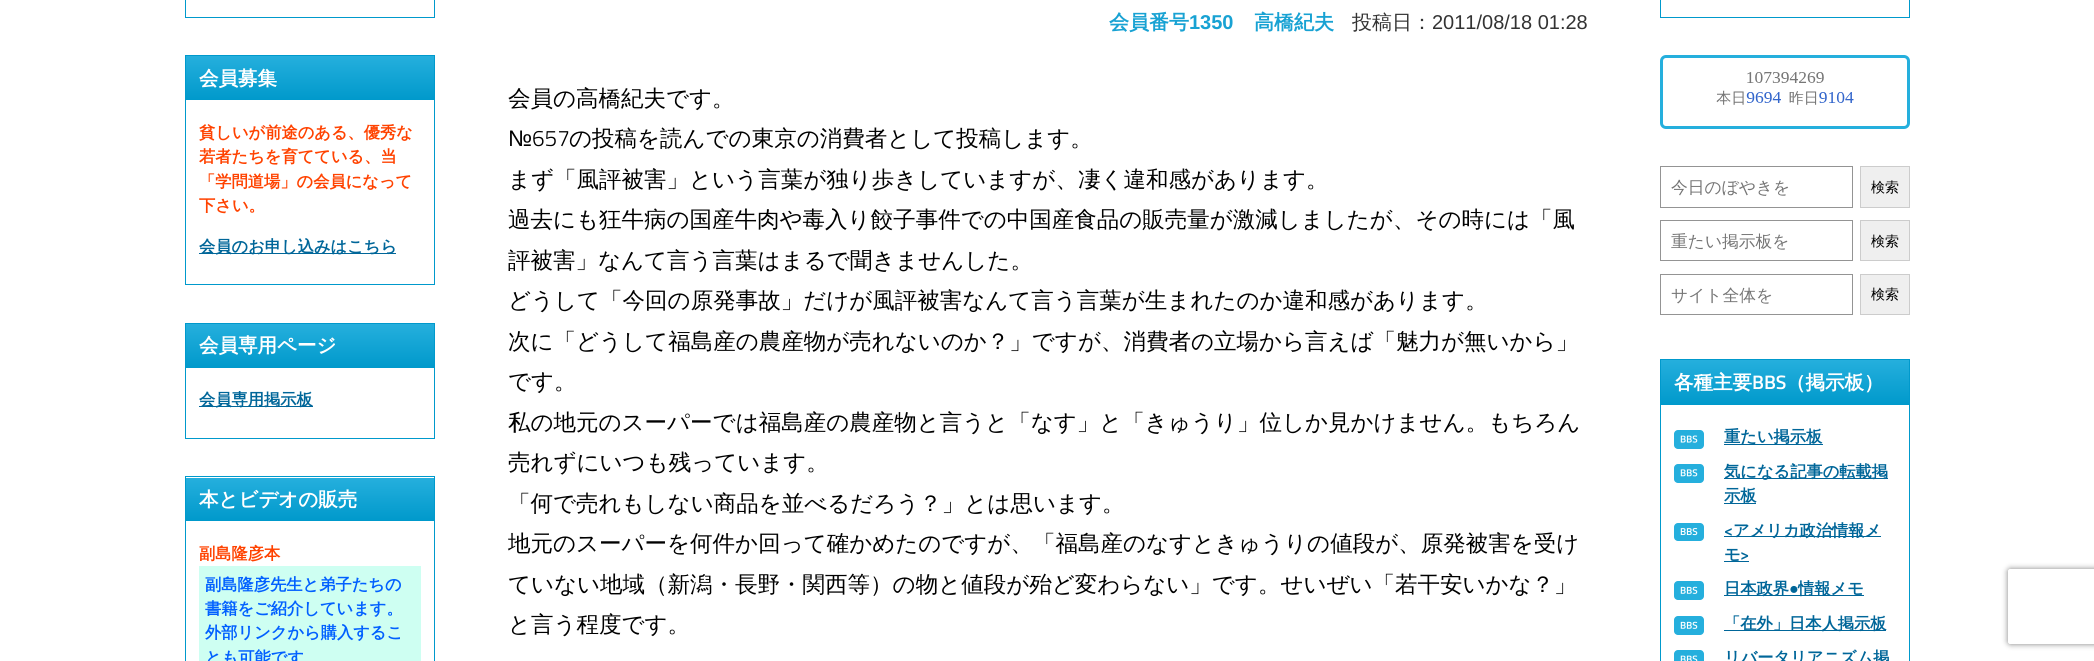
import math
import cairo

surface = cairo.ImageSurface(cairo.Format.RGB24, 2094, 661)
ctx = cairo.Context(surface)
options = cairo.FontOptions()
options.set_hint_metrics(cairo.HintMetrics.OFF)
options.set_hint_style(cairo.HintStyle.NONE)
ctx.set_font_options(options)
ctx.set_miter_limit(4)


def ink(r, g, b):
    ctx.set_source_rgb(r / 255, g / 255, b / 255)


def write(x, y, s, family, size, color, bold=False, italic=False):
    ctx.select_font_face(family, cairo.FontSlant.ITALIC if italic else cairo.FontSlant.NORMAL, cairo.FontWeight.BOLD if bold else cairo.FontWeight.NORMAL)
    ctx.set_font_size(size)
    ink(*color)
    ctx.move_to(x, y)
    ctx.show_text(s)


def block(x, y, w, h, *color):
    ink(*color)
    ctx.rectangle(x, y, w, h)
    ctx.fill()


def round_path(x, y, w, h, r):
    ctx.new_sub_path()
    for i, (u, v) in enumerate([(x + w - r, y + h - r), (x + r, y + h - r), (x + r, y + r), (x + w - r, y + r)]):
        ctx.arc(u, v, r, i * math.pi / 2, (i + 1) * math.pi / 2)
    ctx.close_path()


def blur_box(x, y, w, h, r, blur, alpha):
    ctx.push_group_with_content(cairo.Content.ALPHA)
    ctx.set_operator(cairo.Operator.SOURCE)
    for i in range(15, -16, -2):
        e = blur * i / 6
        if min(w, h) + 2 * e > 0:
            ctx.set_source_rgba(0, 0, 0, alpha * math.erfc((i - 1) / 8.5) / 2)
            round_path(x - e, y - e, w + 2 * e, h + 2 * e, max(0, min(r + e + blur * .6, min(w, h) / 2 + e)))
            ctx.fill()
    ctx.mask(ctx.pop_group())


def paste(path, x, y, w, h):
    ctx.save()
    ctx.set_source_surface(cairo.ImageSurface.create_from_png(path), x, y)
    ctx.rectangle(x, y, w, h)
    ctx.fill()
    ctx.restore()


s1 = dict(family="WenQuanYi Zen Hei", size=19.5, color=(255, 255, 255), bold=True)
s2 = dict(family="WenQuanYi Zen Hei", size=16.25, color=(255, 66, 0), bold=True)
s3 = dict(family="WenQuanYi Zen Hei", size=16.25, color=(0, 102, 153), bold=True)
s4 = dict(family="WenQuanYi Zen Hei", size=16.25, color=(1, 96, 255), bold=True)
s5 = dict(family="WenQuanYi Zen Hei", size=20, color=(24, 162, 211), bold=True)
s6 = dict(family="Liberation Sans", size=20, color=(24, 162, 211), bold=True)
s7 = dict(family="WenQuanYi Zen Hei Medium", size=20, color=(51, 51, 51))
s8 = dict(family="Liberation Sans", size=20, color=(51, 51, 51))
s9 = dict(family="WenQuanYi Zen Hei Medium", size=22.5, color=(0, 0, 0))
s10 = dict(family="Liberation Sans", size=22.5, color=(0, 0, 0))
s11 = dict(family="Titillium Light", size=22.5, color=(0, 0, 0))
s12 = dict(family="WenQuanYi Zen Hei Medium", size=16.75, color=(117, 117, 117))
s13 = dict(family="WenQuanYi Zen Hei Medium", size=14, color=(0, 0, 0))
s14 = dict(family="Titillium SemiBold", size=19.5, color=(255, 255, 255))
s15 = dict(family="Titillium SemiBold", size=16.25, color=(0, 102, 153))
s16 = dict(family="Liberation Sans", size=16.25, color=(0, 102, 153), bold=True)

ink(255, 255, 255)
ctx.paint()
ctx.rectangle(185.5, -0.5, 249, 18)
ink(0, 153, 204)
ctx.set_line_width(1)
ctx.stroke()
ctx.rectangle(185.5, 55.5, 249, 229)
ctx.stroke()
gradient = cairo.LinearGradient(310, 100, 310, 56)
gradient.add_color_stop_rgba(0, 0, 0.6, 0.796, 1)
gradient.add_color_stop_rgba(1, 0.145, 0.686, 0.867, 1)
ctx.set_source(gradient)
ctx.rectangle(186, 56, 248, 44)
ctx.fill()
write(199, 85, "会員募集", **s1)
write(199, 138, "貧しいが前途のある、優秀な", **s2)
write(199, 162, "若者たちを育てている、当", **s2)
write(199, 187, "「学問道場」の会員になって", **s2)
write(199, 211, "下さい。", **s2)
block(199, 253, 197, 1, 0, 102, 153)
write(199, 252, "会員のお申し込みはこちら", **s3)
ctx.rectangle(185.5, 323.5, 249, 115)
ink(0, 153, 204)
ctx.stroke()
gradient = cairo.LinearGradient(310, 368, 310, 324)
gradient.add_color_stop_rgba(0, 0, 0.6, 0.796, 1)
gradient.add_color_stop_rgba(1, 0.145, 0.686, 0.867, 1)
ctx.set_source(gradient)
ctx.rectangle(186, 324, 248, 44)
ctx.fill()
write(199, 352, "会員専用ページ", **s1)
block(199, 406, 114, 1, 0, 102, 153)
write(199, 405, "会員専用掲示板", **s3)
ctx.rectangle(185.5, 476.5, 249, 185)
ink(0, 153, 204)
ctx.stroke()
gradient = cairo.LinearGradient(310, 521, 310, 478)
gradient.add_color_stop_rgba(0, 0, 0.6, 0.796, 1)
gradient.add_color_stop_rgba(1, 0.145, 0.686, 0.867, 1)
ctx.set_source(gradient)
ctx.rectangle(186, 478, 248, 43)
ctx.fill()
write(199, 506, "本とビデオの販売", **s1)
write(199, 559, "副島隆彦本", **s2)
block(199, 566, 222, 95, 206, 255, 242)
write(205, 590, "副島隆彦先生と弟子たちの", **s4)
write(205, 614, "書籍をご紹介しています。", **s4)
write(205, 638, "外部リンクから購入するこ", **s4)
write(205, 663, "とも可能です", **s4)
write(1109, 29, "会員番号", **s5)
write(1189, 29, "1350", **s6)
write(1254, 29, "高橋紀夫", **s5)
write(1352, 29, "投稿日：", **s7)
write(1432, 29, "2011/08/18 01:28", **s8)
write(508, 106, "会員の高橋紀夫です。", **s9)
write(508, 146, "№", **s10)
write(532, 146, "657", **s11)
write(569, 146, "の投稿を読んでの東京の消費者として投稿します。", **s9)
write(508, 187, "まず「風評被害」という言葉が独り歩きしていますが、凄く違和感があります。", **s9)
write(508, 227, "過去にも狂牛病の国産牛肉や毒入り餃子事件での中国産食品の販売量が激減しましたが、その時には「風", **s9)
write(508, 268, "評被害」なんて言う言葉はまるで聞きませんした。", **s9)
write(508, 308, "どうして「今回の原発事故」だけが風評被害なんて言う言葉が生まれたのか違和感があります。", **s9)
write(508, 349, "次に「どうして福島産の農産物が売れないのか？」ですが、消費者の立場から言えば「魅力が無いから」", **s9)
write(508, 389, "です。", **s9)
write(508, 430, "私の地元のスーパーでは福島産の農産物と言うと「なす」と「きゅうり」位しか見かけません。もちろん", **s9)
write(508, 470, "売れずにいつも残っています。", **s9)
write(508, 511, "「何で売れもしない商品を並べるだろう？」とは思います。", **s9)
write(508, 551, "地元のスーパーを何件か回って確かめたのですが、「福島産のなすときゅうりの値段が、原発被害を受け", **s9)
write(508, 592, "ていない地域（新潟・長野・関西等）の物と値段が殆ど変わらない」です。せいぜい「若干安いかな？」", **s9)
write(508, 632, "と言う程度です。", **s9)
ctx.rectangle(1660.5, -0.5, 249, 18)
ink(0, 153, 204)
ctx.stroke()
round_path(1661.5, 56.5, 247, 71, 4.5)
ink(37, 175, 221)
ctx.set_line_width(3)
ctx.stroke()
paste("pic1.png", 1716, 72, 138, 33)
ctx.rectangle(1660.5, 166.5, 192, 41)
ink(148, 148, 148)
ctx.set_line_width(1)
ctx.stroke()
write(1671, 193, "今日のぼやきを", **s12)
ink(239, 239, 239)
ctx.rectangle(1860.5, 166.5, 49, 41)
ctx.fill_preserve()
ink(204, 204, 204)
ctx.stroke()
write(1871, 192, "検索", **s13)
ctx.rectangle(1660.5, 220.5, 192, 40)
ink(148, 148, 148)
ctx.stroke()
write(1671, 247, "重たい掲示板を", **s12)
ink(239, 239, 239)
ctx.rectangle(1860.5, 220.5, 49, 40)
ctx.fill_preserve()
ink(204, 204, 204)
ctx.stroke()
write(1871, 246, "検索", **s13)
ctx.rectangle(1660.5, 274.5, 192, 40)
ink(148, 148, 148)
ctx.stroke()
write(1671, 301, "サイト全体を", **s12)
ink(239, 239, 239)
ctx.rectangle(1860.5, 274.5, 49, 40)
ctx.fill_preserve()
ink(204, 204, 204)
ctx.stroke()
write(1871, 299, "検索", **s13)
ctx.rectangle(1660.5, 359.5, 249, 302)
ink(0, 153, 204)
ctx.stroke()
gradient = cairo.LinearGradient(1785, 405, 1785, 360)
gradient.add_color_stop_rgba(0, 0, 0.6, 0.796, 1)
gradient.add_color_stop_rgba(1, 0.145, 0.686, 0.867, 1)
ctx.set_source(gradient)
ctx.rectangle(1661, 360, 248, 45)
ctx.fill()
write(1674, 389, "各種主要", **s1)
write(1752, 389, "BBS", **s14)
write(1786, 389, "（掲示板）", **s1)
ink(37, 175, 221)
round_path(1674, 430, 30, 19, 4)
ctx.fill()
paste("pic2.png", 1680, 435, 18, 8)
block(1724, 444, 99, 1, 0, 102, 153)
write(1724, 442, "重たい掲示板", **s3)
ink(37, 175, 221)
round_path(1674, 464, 30, 19, 4)
ctx.fill()
paste("pic3.png", 1680, 469, 18, 8)
block(1724, 478, 164, 1, 0, 102, 153)
write(1724, 477, "気になる記事の転載掲", **s3)
block(1724, 503, 32, 1, 0, 102, 153)
write(1724, 501, "示板", **s3)
ink(37, 175, 221)
round_path(1674, 523, 30, 18, 4)
ctx.fill()
paste("pic4.png", 1680, 528, 18, 8)
write(1724, 536, "<", **s15)
block(1724, 536, 157, 1, 0, 102, 153)
write(1733, 536, "アメリカ政治情報メ", **s3)
write(1724, 560, "モ", **s3)
write(1740, 560, ">", **s15)
block(1724, 561, 25, 1, 0, 102, 153)
ink(37, 175, 221)
round_path(1674, 581, 30, 19, 4)
ctx.fill()
paste("pic5.png", 1680, 586, 18, 8)
block(1724, 595, 140, 1, 0, 102, 153)
write(1724, 594, "日本政界", **s3)
write(1789, 594, "●", **s16)
write(1798, 594, "情報メモ", **s3)
ink(37, 175, 221)
round_path(1674, 616, 30, 19, 4)
ctx.fill()
paste("pic5.png", 1680, 621, 18, 8)
block(1724, 630, 162, 1, 0, 102, 153)
write(1724, 629, "「在外」日本人掲示板", **s3)
ink(37, 175, 221)
round_path(1674, 650, 30, 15, 4)
ctx.fill()
paste("pic6.png", 1680, 655, 18, 6)
write(1724, 663, "リバータリアニズム掲", **s3)
ctx.save()
ctx.set_fill_rule(cairo.FillRule.EVEN_ODD)
ctx.new_path()
ctx.move_to(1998, 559)
ctx.line_to(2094, 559)
ctx.line_to(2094, 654)
ctx.line_to(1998, 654)
ctx.close_path()
ctx.move_to(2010.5, 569)
ctx.line_to(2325.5, 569)
ctx.curve_to(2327, 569, 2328, 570, 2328, 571.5)
ctx.line_to(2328, 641.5)
ctx.curve_to(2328, 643, 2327, 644, 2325.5, 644)
ctx.line_to(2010.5, 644)
ctx.curve_to(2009, 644, 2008, 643, 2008, 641.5)
ctx.line_to(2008, 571.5)
ctx.curve_to(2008, 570, 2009, 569, 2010.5, 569)
ctx.close_path()
ctx.clip()
ink(128, 128, 128)
blur_box(2008, 569, 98, 75, 2.5, 3, 1)
ctx.restore()
surface.write_to_png("screenshot.png")
